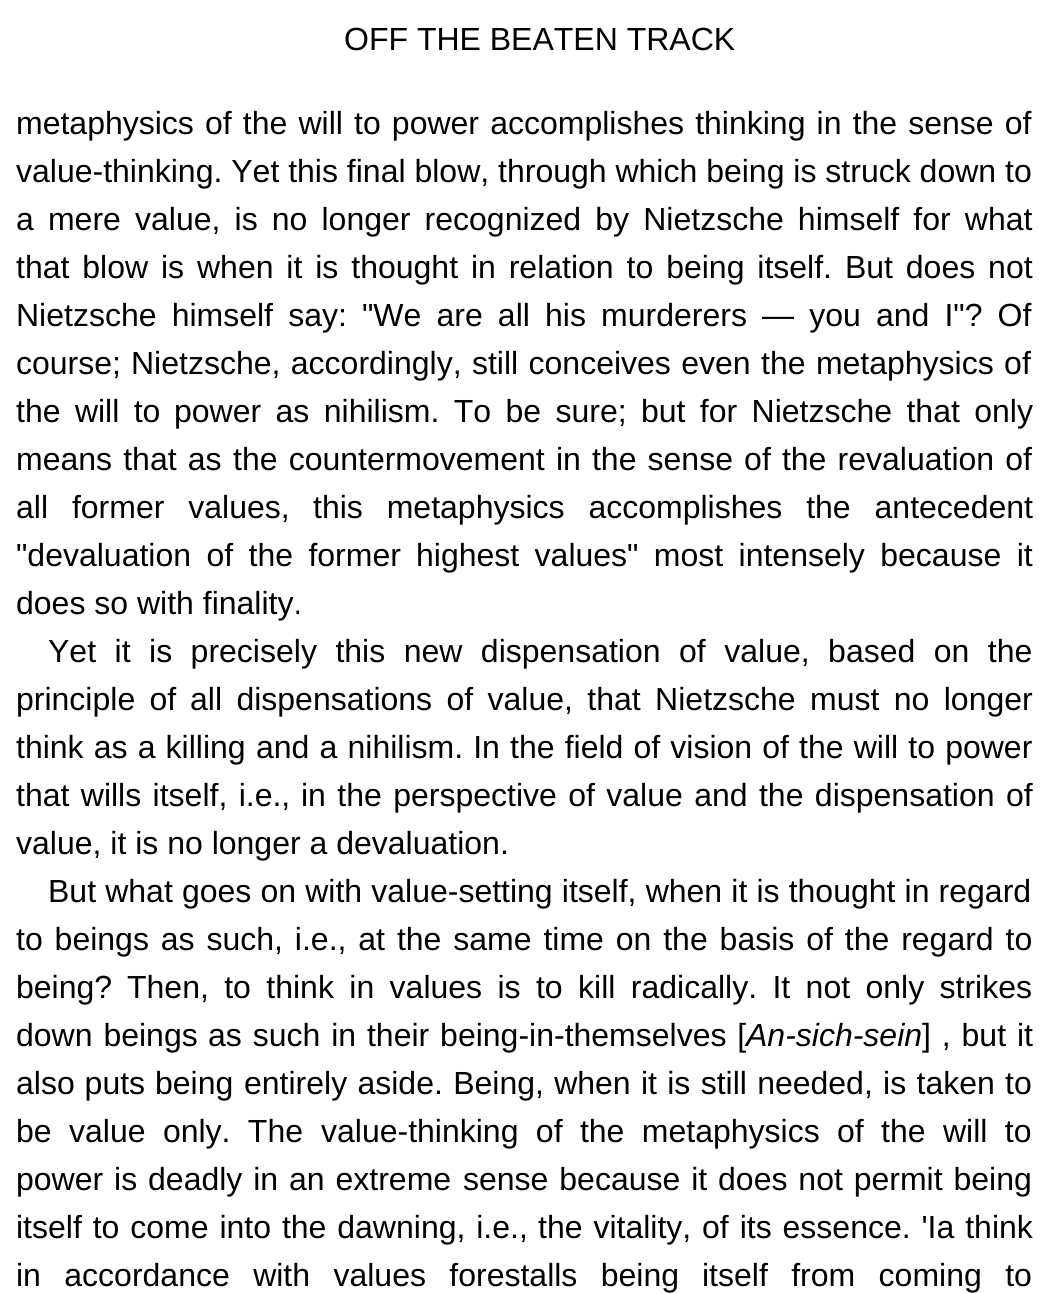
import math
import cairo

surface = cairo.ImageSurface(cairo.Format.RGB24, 1048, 1294)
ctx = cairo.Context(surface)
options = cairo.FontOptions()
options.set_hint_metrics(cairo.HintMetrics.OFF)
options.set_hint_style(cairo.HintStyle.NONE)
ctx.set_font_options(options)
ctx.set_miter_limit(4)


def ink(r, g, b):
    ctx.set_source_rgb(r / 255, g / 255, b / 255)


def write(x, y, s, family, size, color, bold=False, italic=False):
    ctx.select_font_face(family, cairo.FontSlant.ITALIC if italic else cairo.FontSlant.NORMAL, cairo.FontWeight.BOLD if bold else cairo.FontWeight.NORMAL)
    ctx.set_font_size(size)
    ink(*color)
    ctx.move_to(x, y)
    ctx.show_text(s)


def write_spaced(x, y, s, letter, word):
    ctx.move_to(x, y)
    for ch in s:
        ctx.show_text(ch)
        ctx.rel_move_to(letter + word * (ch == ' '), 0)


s1 = dict(family="Liberation Sans", size=32, color=(0, 0, 0))
s2 = dict(family="Liberation Sans", size=32, color=(0, 0, 0), italic=True)

ink(255, 255, 255)
ctx.paint()
write(344, 50, "OFF THE BEATEN TRACK", **s1)
write_spaced(16, 134, "metaphysics of the will to power accomplishes thinking in the sense of", 0, 2.25)
write(16, 182, "value-thinking. Yet this final blow, through which being is struck down", **s1)
write(1005, 182, "to", **s1)
write_spaced(16, 230, "a mere value, is no longer recognized by Nietzsche himself for what", 0, 5.25)
write_spaced(16, 278, "that blow is when it is thought in relation to being itself. But does not", 0, 4)
write_spaced(16, 326, "Nietzsche himself say: \"We are all his murderers — you and I\"? Of", 0, 6.25)
write(16, 374, "course;", **s1)
write_spaced(131, 374, "Nietzsche, accordingly, still conceives even the metaphysics of", 0, 1.5)
write_spaced(16, 422, "the will to", 0, 5.5)
write_spaced(174, 422, "power as nihilism. To be sure; but for Nietzsche that only", 0, 5.5)
write_spaced(16, 470, "means that as", 0, 2.25)
write_spaced(233, 470, "the countermovement in the sense of the revaluation of", 0, 2.25)
write_spaced(16, 518, "all former values,", 0, 15)
write_spaced(313, 518, "this metaphysics accomplishes the antecedent", 0, 15)
write_spaced(16, 566, "\"devaluation of the former", 0, 6.5)
write_spaced(416, 566, "highest values\" most intensely because it", 0, 6.5)
write(16, 614, "does so with finality.", **s1)
write_spaced(48, 662, "Yet it is precisely this new dispensation of value, based on the", 0, 9.6)
write_spaced(16, 710, "principle of", 0, 5.5)
write_spaced(190, 710, "all dispensations of value, that Nietzsche must no longer", 0, 5.5)
write_spaced(16, 758, "think as a killing", 0, 1.25)
write_spaced(256, 758, "and a nihilism. In the field of vision of the will to power", 0, 1.25)
write_spaced(16, 806, "that wills itself, i.e.,", 0, 2.5)
write_spaced(301, 806, "in the perspective of value and the dispensation of", 0, 2.5)
write(16, 854, "value, it is no longer a devaluation.", **s1)
write_spaced(48, 902, "But what goes on with value-setting itself, when it is thought in regard", 0, 0.25)
write_spaced(16, 950, "to beings as such, i.e., at the same time on the basis of the regard to", 0, 3)
write(16, 998, "being?", **s1)
write_spaced(127, 998, "Then, to think in values is to kill radically. It not only strikes", 0, 6.5)
write_spaced(16, 1046, "down beings", 0, 2)
write_spaced(208, 1046, "as such in their being-in-themselves [", 0, 2)
write(746, 1046, "An-sich-sein", **s2)
ctx.select_font_face("Liberation Sans")
write_spaced(922, 1046, "] , but it", 0, 2)
write_spaced(16, 1094, "also puts being", 0, 1)
write_spaced(244, 1094, "entirely aside. Being, when it is still needed, is taken to", 0, 1.4)
write_spaced(16, 1142, "be value only. The", 0, 8.5)
write_spaced(321, 1142, "value-thinking of the metaphysics of the will to", 0, 8.5)
write_spaced(16, 1190, "power is deadly in an extreme", 0, 2)
write_spaced(463, 1190, "sense because it does not permit being", 0, 2)
write_spaced(16, 1238, "itself to come into the dawning, i.e.,", 0, 2)
write_spaced(538, 1238, "the vitality, of its essence. 'Ia think", 0, 2)
write_spaced(16, 1286, "in accordance with values forestalls being", 0, 14.5)
write_spaced(702, 1286, "itself from coming to", 0, 14.5)
surface.write_to_png("screenshot.png")
